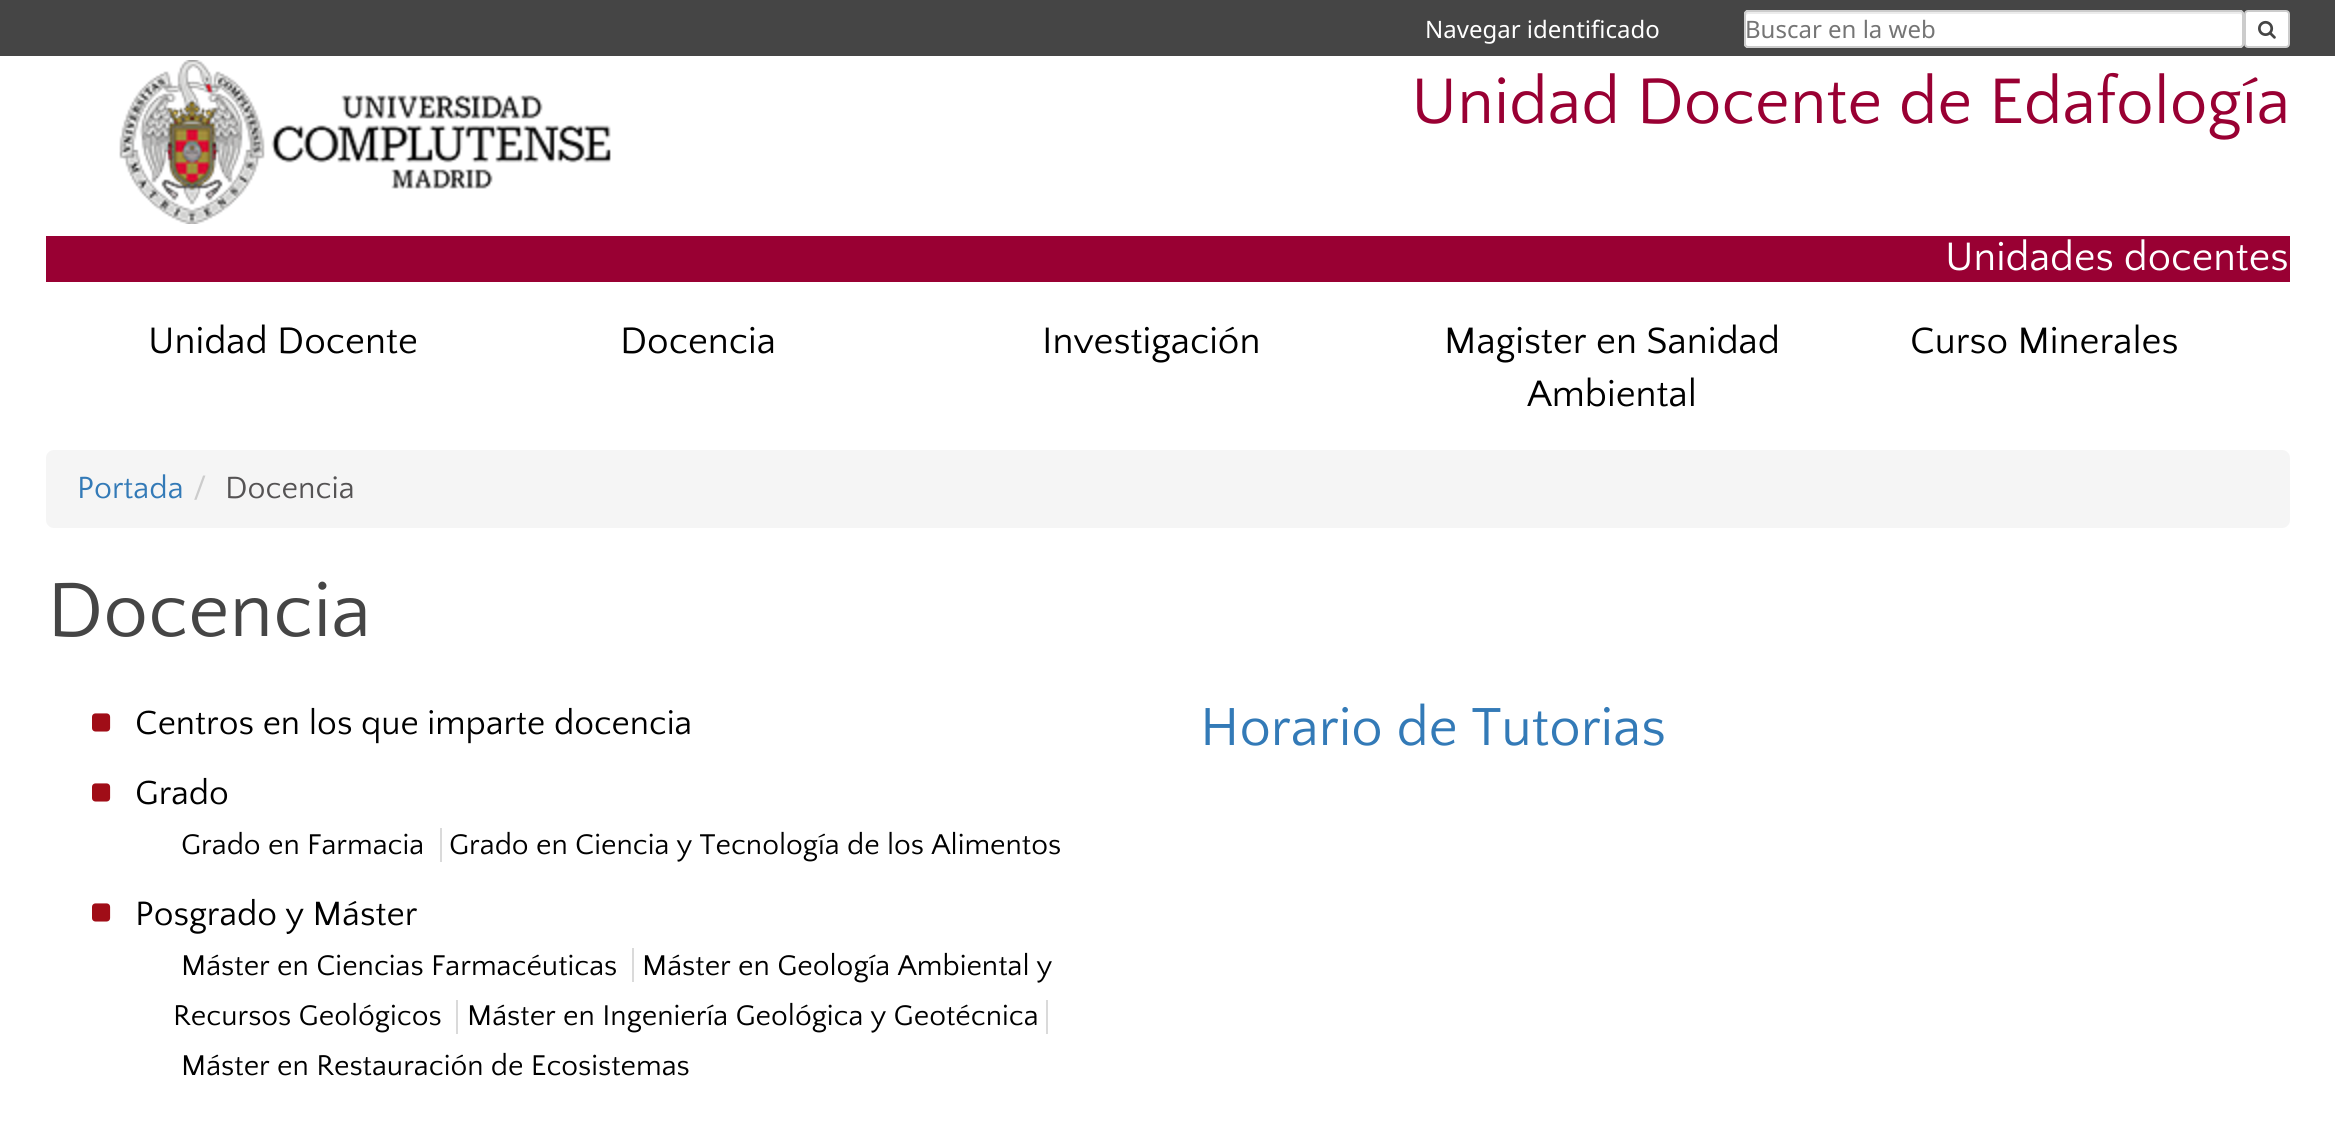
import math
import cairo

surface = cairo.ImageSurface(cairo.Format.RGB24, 2335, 1125)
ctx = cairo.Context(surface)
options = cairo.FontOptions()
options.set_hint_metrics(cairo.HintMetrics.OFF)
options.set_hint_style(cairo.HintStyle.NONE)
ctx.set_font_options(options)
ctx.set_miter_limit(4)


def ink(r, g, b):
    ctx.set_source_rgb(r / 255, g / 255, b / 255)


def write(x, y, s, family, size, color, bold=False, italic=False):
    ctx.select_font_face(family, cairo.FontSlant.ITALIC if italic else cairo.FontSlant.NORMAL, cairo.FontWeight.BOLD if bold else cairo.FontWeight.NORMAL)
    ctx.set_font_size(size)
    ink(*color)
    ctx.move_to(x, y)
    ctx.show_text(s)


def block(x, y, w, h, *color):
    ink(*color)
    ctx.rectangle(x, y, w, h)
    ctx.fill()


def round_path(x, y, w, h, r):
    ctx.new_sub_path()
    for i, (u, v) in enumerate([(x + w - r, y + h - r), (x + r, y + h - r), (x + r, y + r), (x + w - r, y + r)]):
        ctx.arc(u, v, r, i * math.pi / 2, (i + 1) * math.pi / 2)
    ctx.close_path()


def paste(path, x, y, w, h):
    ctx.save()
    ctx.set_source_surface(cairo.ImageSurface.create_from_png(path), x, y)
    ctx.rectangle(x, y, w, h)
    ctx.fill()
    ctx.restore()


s1 = dict(family="Noto Sans", size=24, color=(255, 255, 255))
s2 = dict(family="Noto Sans", size=24, color=(117, 117, 117))
s3 = dict(family="Quattrocento Sans", size=67.25, color=(153, 0, 51))
s4 = dict(family="Quattrocento Sans", size=41.5, color=(255, 255, 255))
s5 = dict(family="Quattrocento Sans", size=38.5, color=(0, 0, 0))
s6 = dict(family="Quattrocento Sans", size=32, color=(51, 122, 183))
s7 = dict(family="Quattrocento Sans", size=32, color=(204, 204, 204))
s8 = dict(family="Quattrocento Sans", size=32, color=(85, 83, 84))
s9 = dict(family="Quattrocento Sans", size=80, color=(69, 69, 69))
s10 = dict(family="Quattrocento Sans", size=35.25, color=(0, 0, 0))
s11 = dict(family="Quattrocento Sans", size=29.9, color=(0, 0, 0))
s12 = dict(family="Quattrocento Sans", size=56, color=(51, 122, 183))

ink(255, 255, 255)
ctx.paint()
block(0, 0, 2335, 56, 69, 69, 69)
write(1425, 38, "Navegar identificado", **s1)
round_path(1744, 10, 500, 38, 4)
ctx.fill()
ink(236, 236, 236)
ctx.new_path()
ctx.move_to(1748, 14)
ctx.line_to(2240, 14)
ctx.curve_to(2241, 14, 2242, 15, 2242, 16)
ctx.curve_to(2242, 14, 2242, 12, 2240, 12)
ctx.line_to(1747, 12)
ctx.line_to(1746, 13)
ctx.line_to(1746, 16)
ctx.curve_to(1746, 15, 1747, 14, 1748, 14)
ctx.close_path()
ctx.fill()
round_path(1745, 11, 498, 36, 3)
ink(204, 204, 204)
ctx.stroke()
write(1745, 38, "Buscar en la web", **s2)
ink(255, 255, 255)
round_path(2245, 11, 44, 36, 3)
ctx.fill_preserve()
ink(204, 204, 204)
ctx.stroke()
paste("pic1.png", 2258, 20, 18, 19)
paste("pic2.png", 119, 60, 492, 164)
write(1411, 123, "Unidad Docente de Edafología", **s3)
block(46, 236, 2244, 46, 153, 0, 51)
write(1945, 270, "Unidades docentes", **s4)
write(148, 353, "Unidad Docente", **s5)
write(620, 353, "Docencia", **s5)
write(1042, 353, "Investigación", **s5)
write(1444, 353, "Magister en Sanidad", **s5)
write(1527, 406, "Ambiental", **s5)
write(1910, 353, "Curso Minerales", **s5)
ink(245, 245, 245)
round_path(46, 450, 2244, 78, 8)
ctx.fill()
write(77, 498, "Portada", **s6)
write(193, 498, "/", **s7)
write(225, 498, "Docencia", **s8)
write(47, 636, "Docencia", **s9)
paste("pic3.png", 92, 713, 19, 19)
write(135, 734, "Centros en los que imparte docencia", **s10)
paste("pic3.png", 92, 783, 19, 19)
write(135, 804, "Grado", **s10)
write(181, 854, "Grado en Farmacia", **s11)
block(440, 828, 2, 34, 218, 218, 218)
write(449, 854, "Grado en Ciencia y Tecnología de los Alimentos", **s11)
paste("pic3.png", 92, 903, 19, 19)
write(135, 925, "Posgrado y Máster", **s10)
write(181, 975, "Máster en Ciencias Farmacéuticas", **s11)
block(632, 948, 2, 34, 218, 218, 218)
write(642, 975, "Máster en Geología Ambiental y", **s11)
write(173, 1025, "Recursos Geológicos", **s11)
block(456, 1000, 2, 34, 218, 218, 218)
write(467, 1025, "Máster en Ingeniería Geológica y Geotécnica", **s11)
block(1046, 1000, 2, 34, 218, 218, 218)
write(181, 1075, "Máster en Restauración de Ecosistemas", **s11)
write(1200, 745, "Horario de Tutorias", **s12)
surface.write_to_png("screenshot.png")
